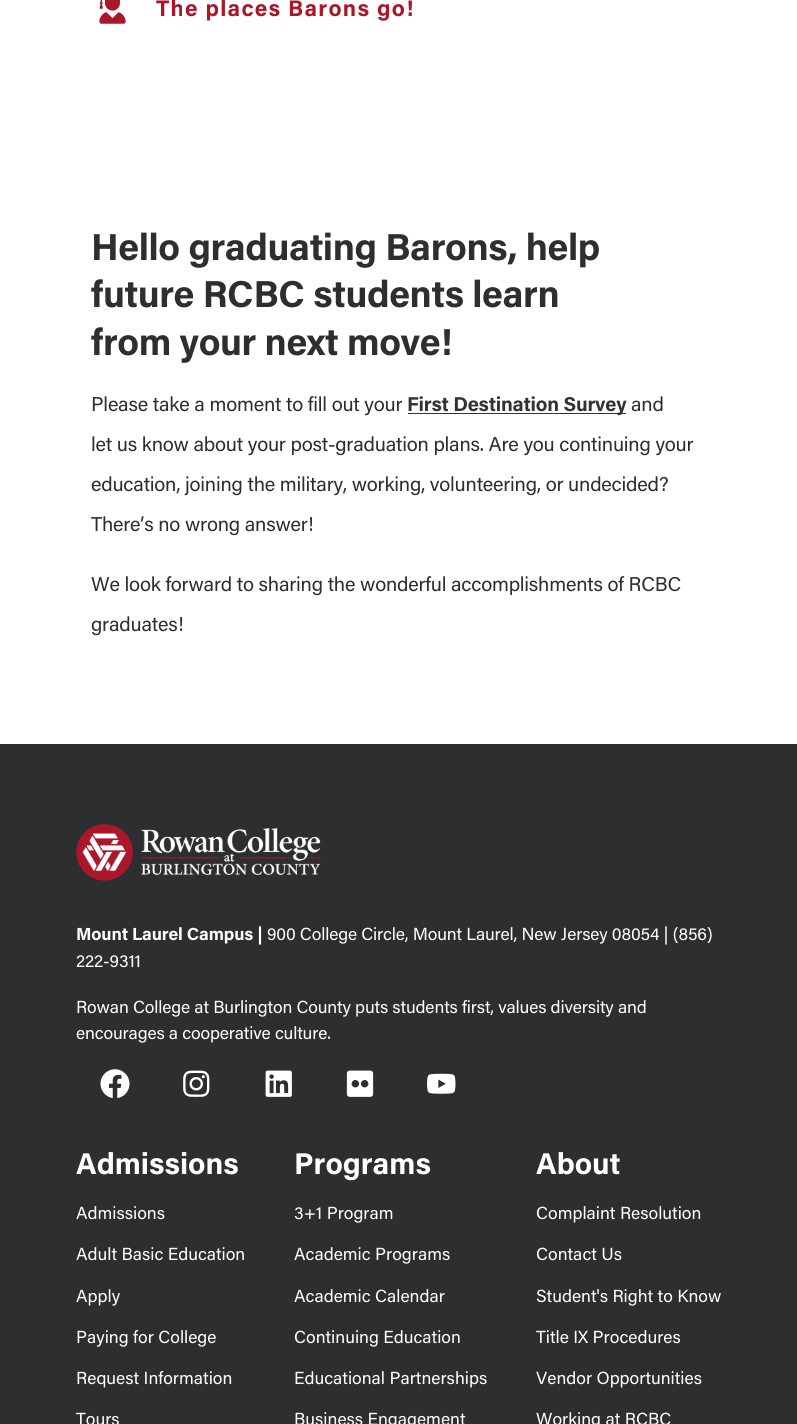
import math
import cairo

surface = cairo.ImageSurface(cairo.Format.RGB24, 797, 1424)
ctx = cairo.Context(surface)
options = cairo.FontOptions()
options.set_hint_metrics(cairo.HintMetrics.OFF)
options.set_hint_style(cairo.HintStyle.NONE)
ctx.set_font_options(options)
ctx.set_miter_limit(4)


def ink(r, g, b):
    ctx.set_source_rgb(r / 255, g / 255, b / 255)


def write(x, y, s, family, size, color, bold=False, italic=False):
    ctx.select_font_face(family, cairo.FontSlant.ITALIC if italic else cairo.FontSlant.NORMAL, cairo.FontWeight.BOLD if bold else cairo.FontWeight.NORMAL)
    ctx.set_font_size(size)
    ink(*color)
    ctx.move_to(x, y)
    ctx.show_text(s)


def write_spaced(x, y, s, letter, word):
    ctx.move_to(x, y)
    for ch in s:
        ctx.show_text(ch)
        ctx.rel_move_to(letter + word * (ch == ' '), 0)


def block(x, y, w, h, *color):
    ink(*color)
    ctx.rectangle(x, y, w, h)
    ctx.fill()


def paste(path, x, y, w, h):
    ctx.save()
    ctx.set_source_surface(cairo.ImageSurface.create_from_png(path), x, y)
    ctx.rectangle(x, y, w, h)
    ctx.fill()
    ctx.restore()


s1 = dict(family="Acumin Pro", size=30, color=(255, 255, 255), bold=True)
s2 = dict(family="Acumin Pro", size=17.5, color=(255, 255, 255))

ink(255, 255, 255)
ctx.paint()
paste("pic1.png", 99, 0, 27, 24)
ctx.select_font_face("Acumin Pro", cairo.FontSlant.NORMAL, cairo.FontWeight.BOLD)
ctx.set_font_size(22.5)
ink(171, 22, 43)
write_spaced(156, 16, "The places Barons go!", 1.25, 0)
ctx.set_font_size(37.5)
ink(44, 46, 48)
write_spaced(91, 260, "Hello graduating Barons, help", -0.4, 0)
write_spaced(91, 307, "future RCBC students learn", -0.4, 0)
write_spaced(91, 355, "from your next move!", -0.4, 0)
ctx.select_font_face("Acumin Pro")
ctx.set_font_size(20)
write_spaced(91, 411, "Please take a moment to fill out your", -0.22, 0)
block(408, 413, 218, 1, 51, 51, 51)
ctx.select_font_face("Acumin Pro", cairo.FontSlant.NORMAL, cairo.FontWeight.BOLD)
write_spaced(407, 411, "First Destination Survey", -0.22, 0)
ctx.select_font_face("Acumin Pro")
ink(44, 46, 48)
write_spaced(631, 411, "and", -0.22, 0)
write_spaced(91, 451, "let us know about your post-graduation plans. Are you continuing your", -0.22, 0)
write_spaced(91, 491, "education, joining the military, working, volunteering, or undecided?", -0.22, 0)
write_spaced(91, 531, "There’s no wrong answer!", -0.22, 0)
write_spaced(91, 591, "We look forward to sharing the wonderful accomplishments of RCBC", -0.22, 0)
write_spaced(91, 631, "graduates!", -0.22, 0)
block(0, 744, 797, 680, 44, 46, 48)
paste("pic2.png", 76, 823, 245, 58)
ctx.select_font_face("Acumin Pro", cairo.FontSlant.NORMAL, cairo.FontWeight.BOLD)
ctx.set_font_size(17.5)
ink(255, 255, 255)
write_spaced(76, 940, "Mount Laurel Campus |", -0.15, 0)
ctx.select_font_face("Acumin Pro")
write_spaced(267, 940, "900 College Circle, Mount Laurel, New Jersey 08054 | (856)", -0.15, 0)
write_spaced(76, 967, "222-9311", -0.15, 0)
write_spaced(76, 1013, "Rowan College at Burlington County puts students first, values diversity and", -0.15, 0)
write_spaced(76, 1039, "encourages a cooperative culture.", -0.15, 0)
paste("pic3.png", 100, 1069, 30, 29)
paste("pic4.png", 183, 1070, 27, 27)
paste("pic5.png", 265, 1070, 27, 27)
paste("pic6.png", 346, 1070, 28, 27)
paste("pic7.png", 427, 1073, 29, 21)
write(76, 1174, "Admissions", **s1)
write(76, 1219, "Admissions", **s2)
write(76, 1260, "Adult Basic Education", **s2)
write(76, 1302, "Apply", **s2)
write(76, 1343, "Paying for College", **s2)
write(76, 1384, "Request Information", **s2)
write(76, 1425, "Tours", **s2)
write(294, 1174, "Programs", **s1)
write(294, 1219, "3+1 Program", **s2)
write(294, 1260, "Academic Programs", **s2)
write(294, 1302, "Academic Calendar", **s2)
write(294, 1343, "Continuing Education", **s2)
write(294, 1384, "Educational Partnerships", **s2)
write(294, 1425, "Business Engagement", **s2)
write(536, 1174, "About", **s1)
write(536, 1219, "Complaint Resolution", **s2)
write(536, 1260, "Contact Us", **s2)
write(536, 1302, "Student's Right to Know", **s2)
write(536, 1343, "Title IX Procedures", **s2)
write(536, 1384, "Vendor Opportunities", **s2)
write(536, 1425, "Working at RCBC", **s2)
surface.write_to_png("screenshot.png")
